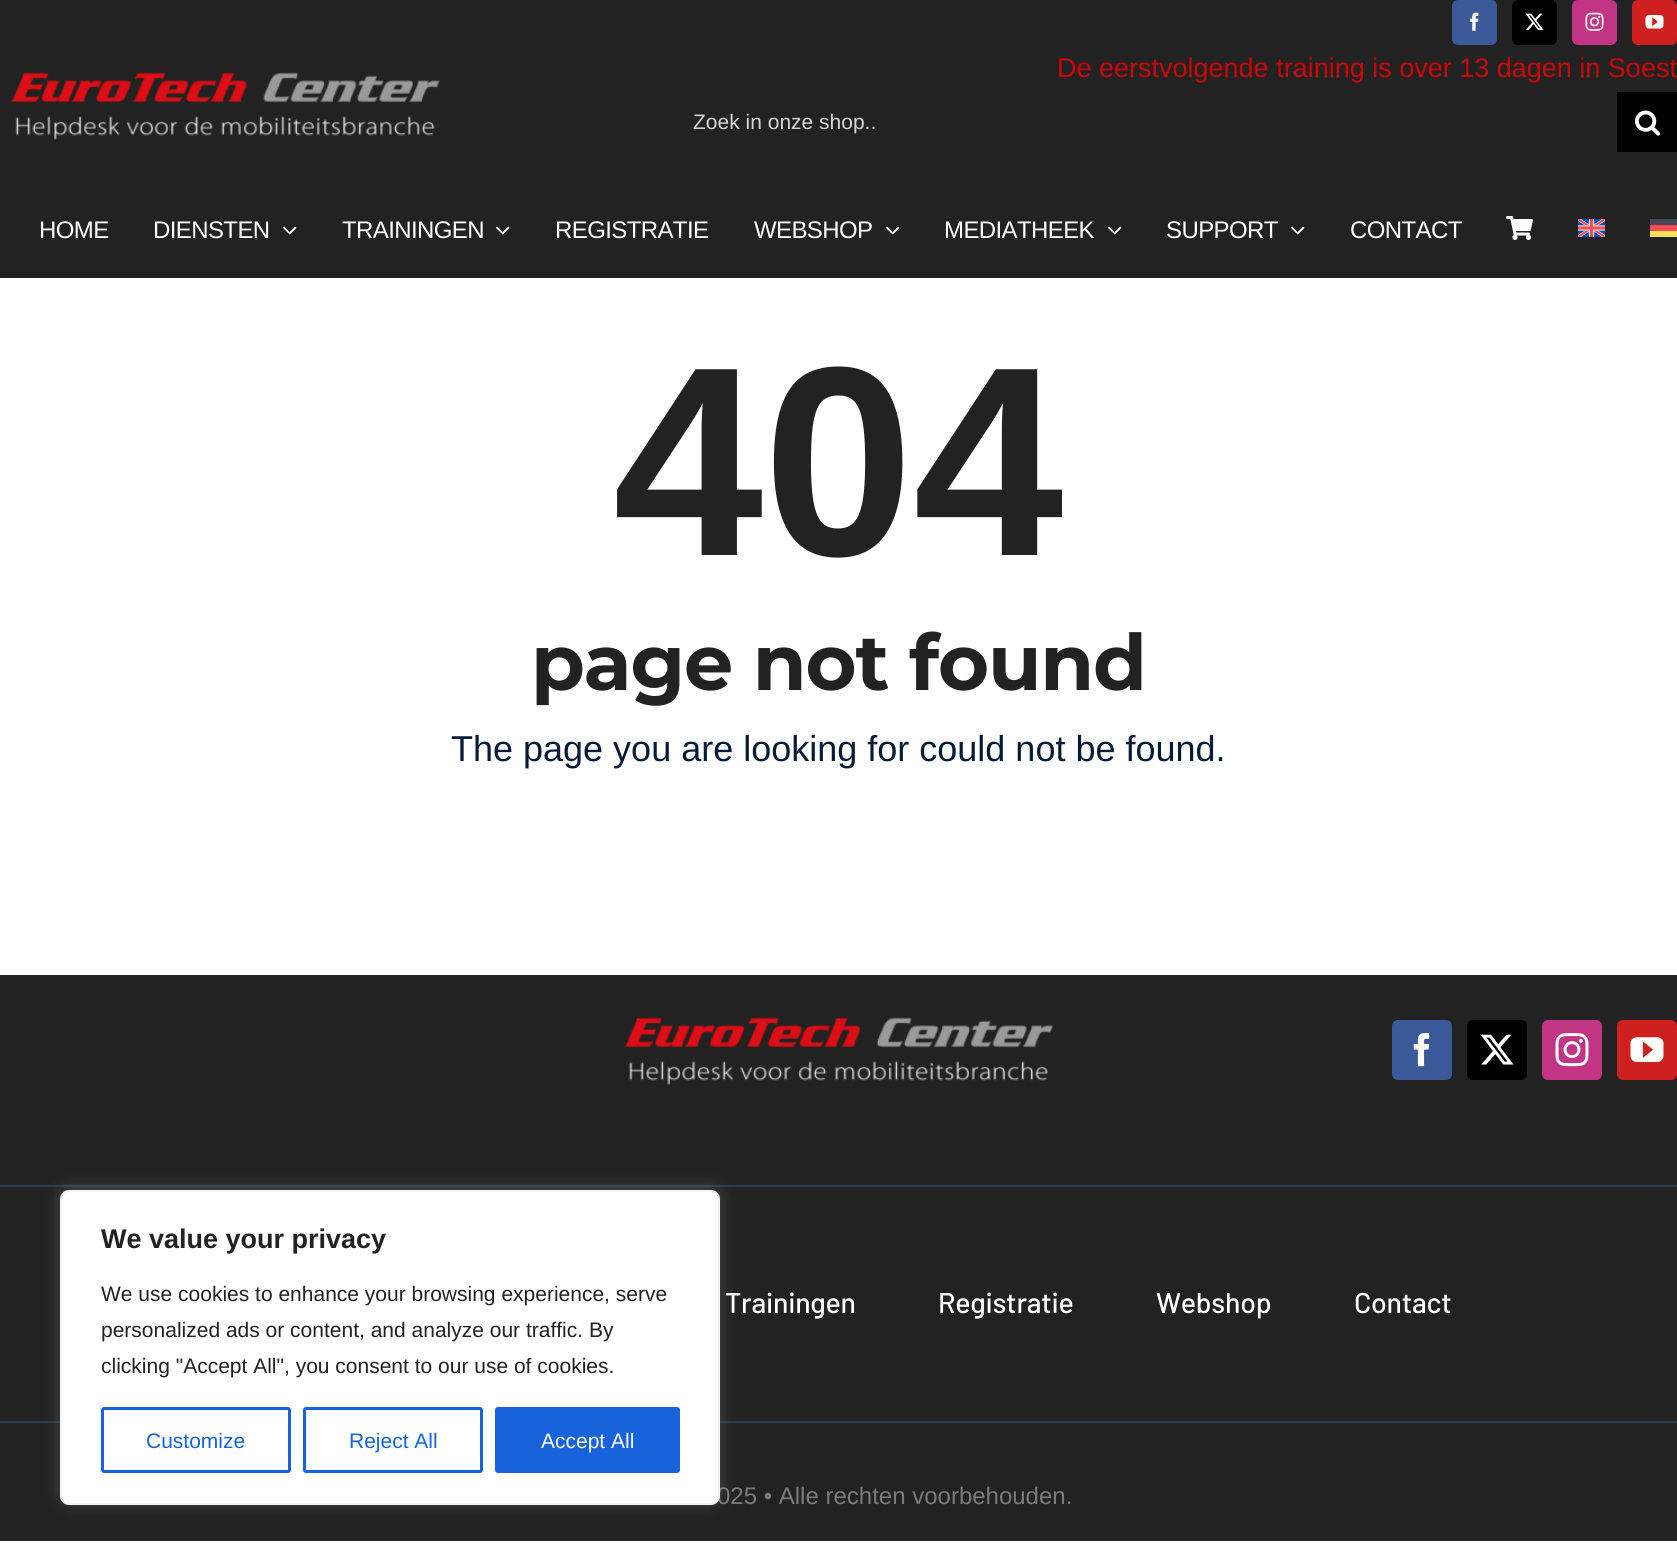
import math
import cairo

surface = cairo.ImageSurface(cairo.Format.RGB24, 1677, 1564)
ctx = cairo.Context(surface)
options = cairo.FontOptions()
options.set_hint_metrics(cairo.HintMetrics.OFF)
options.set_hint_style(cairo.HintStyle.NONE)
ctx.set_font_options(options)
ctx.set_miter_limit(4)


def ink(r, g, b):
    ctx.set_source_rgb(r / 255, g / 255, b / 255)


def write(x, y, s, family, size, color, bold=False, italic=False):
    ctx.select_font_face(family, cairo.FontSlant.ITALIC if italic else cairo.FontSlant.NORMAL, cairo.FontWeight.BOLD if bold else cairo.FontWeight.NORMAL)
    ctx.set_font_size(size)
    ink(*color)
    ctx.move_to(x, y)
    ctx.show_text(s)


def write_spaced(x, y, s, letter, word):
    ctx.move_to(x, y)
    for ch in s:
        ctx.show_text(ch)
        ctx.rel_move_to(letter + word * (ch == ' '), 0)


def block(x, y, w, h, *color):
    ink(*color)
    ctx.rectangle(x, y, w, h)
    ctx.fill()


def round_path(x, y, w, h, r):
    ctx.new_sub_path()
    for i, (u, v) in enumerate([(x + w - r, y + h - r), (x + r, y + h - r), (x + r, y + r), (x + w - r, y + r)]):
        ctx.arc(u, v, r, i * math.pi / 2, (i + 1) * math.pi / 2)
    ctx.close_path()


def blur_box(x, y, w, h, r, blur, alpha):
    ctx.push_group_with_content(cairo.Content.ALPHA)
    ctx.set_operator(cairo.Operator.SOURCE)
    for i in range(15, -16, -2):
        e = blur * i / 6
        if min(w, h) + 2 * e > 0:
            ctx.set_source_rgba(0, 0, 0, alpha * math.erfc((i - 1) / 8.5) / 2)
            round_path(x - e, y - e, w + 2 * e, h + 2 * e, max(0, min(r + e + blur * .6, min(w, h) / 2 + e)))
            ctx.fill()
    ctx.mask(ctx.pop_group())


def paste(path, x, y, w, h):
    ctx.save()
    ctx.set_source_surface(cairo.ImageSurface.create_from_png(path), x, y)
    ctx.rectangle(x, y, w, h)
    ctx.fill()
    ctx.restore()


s1 = dict(family="Liberation Sans", size=27, color=(204, 0, 0))
s2 = dict(family="Liberation Sans", size=21, color=(214, 214, 214))
s3 = dict(family="Liberation Sans", size=270, color=(34, 34, 34), bold=True)
s4 = dict(family="Liberation Sans", size=36, color=(8, 27, 54))
s5 = dict(family="Liberation Sans", size=24, color=(122, 122, 122))
s6 = dict(family="Liberation Sans", size=27, color=(34, 34, 34), bold=True)
s7 = dict(family="Liberation Sans", size=21, color=(34, 34, 34))
s8 = dict(family="Liberation Sans", size=21, color=(24, 99, 220))
s9 = dict(family="Liberation Sans", size=21, color=(255, 255, 255))

ink(255, 255, 255)
ctx.paint()
block(0, 0, 1677, 278, 34, 34, 34)
paste("pic1.png", 11, 72, 429, 68)
ink(59, 89, 152)
round_path(1453, 1, 43, 43, 5)
ctx.fill_preserve()
ctx.stroke()
paste("pic2.png", 1470, 12, 9, 19)
ink(0, 0, 0)
round_path(1513, 1, 43, 43, 5)
ctx.fill_preserve()
ctx.stroke()
paste("pic3.png", 1525, 13, 19, 17)
ink(193, 53, 132)
round_path(1573, 1, 43, 43, 5)
ctx.fill_preserve()
ctx.stroke()
paste("pic4.png", 1585, 12, 19, 19)
ink(205, 32, 31)
round_path(1633, 1, 43, 43, 5)
ctx.fill_preserve()
ctx.stroke()
paste("pic5.png", 1645, 15, 19, 14)
write(1057, 77, "De eerstvolgende training is over 13 dagen in Soest", **s1)
write(693, 129, "Zoek in onze shop..", **s2)
block(1617, 92, 60, 60, 0, 0, 0)
paste("pic6.png", 1635, 110, 26, 26)
ctx.set_font_size(24)
ink(255, 255, 255)
write_spaced(39, 238, "HOME", -0.6, 0)
write_spaced(153, 238, "DIENSTEN", -0.6, 0)
paste("pic7.png", 283, 226, 14, 9)
write_spaced(342, 238, "TRAININGEN", -0.6, 0)
paste("pic7.png", 496, 226, 14, 9)
write_spaced(555, 238, "REGISTRATIE", -0.6, 0)
write_spaced(754, 238, "WEBSHOP", -0.6, 0)
paste("pic7.png", 886, 226, 14, 9)
write_spaced(944, 238, "MEDIATHEEK", -0.6, 0)
paste("pic7.png", 1108, 226, 14, 9)
write_spaced(1166, 238, "SUPPORT", -0.6, 0)
paste("pic7.png", 1291, 226, 14, 9)
write_spaced(1350, 238, "CONTACT", -0.6, 0)
paste("pic8.png", 1506, 216, 27, 24)
paste("pic9.png", 1578, 219, 27, 18)
block(1650, 219, 27, 6, 70, 70, 85)
block(1650, 225, 27, 6, 255, 75, 85)
block(1650, 231, 27, 6, 255, 225, 90)
write(613, 555, "404", **s3)
ctx.select_font_face("Montserrat", cairo.FontSlant.NORMAL, cairo.FontWeight.BOLD)
ctx.set_font_size(78)
write_spaced(531, 690, "page not found", -1.2, 0)
write(451, 761, "The page you are looking for could not be found.", **s4)
block(0, 975, 1677, 566, 34, 34, 34)
paste("pic10.png", 624, 1017, 430, 68)
ink(59, 89, 152)
round_path(1393, 1021, 58, 58, 5)
ctx.fill_preserve()
ctx.stroke()
paste("pic11.png", 1413, 1033, 17, 34)
ink(0, 0, 0)
round_path(1468, 1021, 58, 58, 5)
ctx.fill_preserve()
ctx.stroke()
paste("pic12.png", 1480, 1034, 34, 31)
ink(193, 53, 132)
round_path(1543, 1021, 58, 58, 5)
ctx.fill_preserve()
ctx.stroke()
paste("pic13.png", 1555, 1033, 34, 34)
ink(205, 32, 31)
round_path(1618, 1021, 58, 58, 5)
ctx.fill_preserve()
ctx.stroke()
paste("pic14.png", 1630, 1037, 34, 25)
block(0, 1185, 1677, 2, 44, 60, 83)
block(0, 1421, 1677, 2, 44, 60, 83)
ctx.select_font_face("Barlow Medium")
ctx.set_font_size(28.5)
ink(255, 255, 255)
write_spaced(725, 1313, "Trainingen", -0.25, 0)
write_spaced(938, 1313, "Registratie", -0.25, 0)
write_spaced(1156, 1313, "Webshop", -0.25, 0)
write_spaced(1354, 1313, "Contact", -0.25, 0)
write(717, 1504, "025 • Alle rechten voorbehouden.", **s5)
ink(172, 171, 171)
blur_box(60, 1188, 660, 315, 9, 7.5, 0.3)
ink(255, 255, 255)
round_path(61, 1191, 658, 313, 8)
ctx.fill_preserve()
ink(244, 244, 244)
ctx.stroke()
write(101, 1248, "We value your privacy", **s6)
write(101, 1301, "We use cookies to enhance your browsing experience, serve", **s7)
write(101, 1337, "personalized ads or content, and analyze our traffic. By", **s7)
write(101, 1373, "clicking \"Accept All\", you consent to our use of cookies.", **s7)
round_path(102.5, 1408.5, 187, 63, 1.5)
ink(24, 99, 220)
ctx.set_line_width(3)
ctx.stroke()
write(146, 1448, "Customize", **s8)
round_path(304.5, 1408.5, 177, 63, 1.5)
ctx.stroke()
write(349, 1448, "Reject All", **s8)
round_path(496.5, 1408.5, 182, 63, 1.5)
ctx.fill_preserve()
ctx.stroke()
write(541, 1448, "Accept All", **s9)
surface.write_to_png("screenshot.png")
